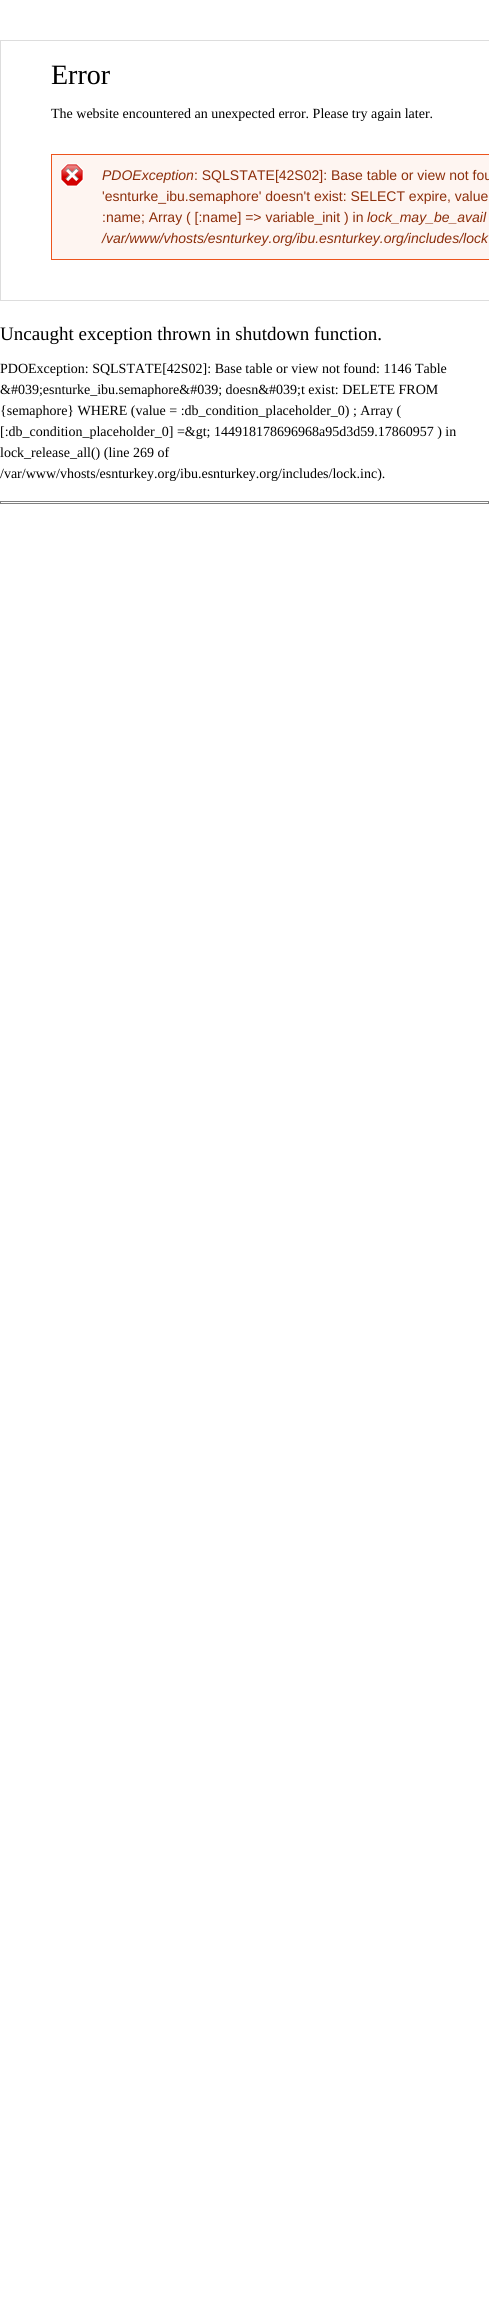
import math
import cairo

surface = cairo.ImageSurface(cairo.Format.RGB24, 489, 2298)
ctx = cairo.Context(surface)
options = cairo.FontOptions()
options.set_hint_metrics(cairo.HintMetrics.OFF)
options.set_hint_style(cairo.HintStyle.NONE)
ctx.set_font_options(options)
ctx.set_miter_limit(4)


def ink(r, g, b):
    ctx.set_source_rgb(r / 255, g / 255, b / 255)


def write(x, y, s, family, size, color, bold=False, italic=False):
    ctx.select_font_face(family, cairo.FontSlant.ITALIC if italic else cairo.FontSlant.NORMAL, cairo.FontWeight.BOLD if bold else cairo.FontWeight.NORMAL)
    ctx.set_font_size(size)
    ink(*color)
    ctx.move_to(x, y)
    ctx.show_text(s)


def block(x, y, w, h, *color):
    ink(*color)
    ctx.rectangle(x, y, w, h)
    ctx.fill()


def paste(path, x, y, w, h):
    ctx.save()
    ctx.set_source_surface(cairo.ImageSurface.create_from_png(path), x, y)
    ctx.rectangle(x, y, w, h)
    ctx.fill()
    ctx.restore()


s1 = dict(family="Liberation Serif", size=28, color=(0, 0, 0))
s2 = dict(family="Liberation Serif", size=14, color=(0, 0, 0))
s3 = dict(family="Liberation Sans", size=14, color=(140, 46, 11), italic=True)
s4 = dict(family="Liberation Sans", size=14, color=(140, 46, 11))
s5 = dict(family="Liberation Serif", size=19, color=(0, 0, 0))

ink(255, 255, 255)
ctx.paint()
ctx.rectangle(0.5, 40.5, 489, 260)
ink(221, 221, 221)
ctx.set_line_width(1)
ctx.stroke()
write(51, 84, "Error", **s1)
write(51, 118, "The website encountered an unexpected error. Please try again later.", **s2)
block(52, 155, 437, 104, 254, 245, 241)
paste("pic1.png", 60, 163, 24, 24)
ctx.rectangle(51.5, 154.5, 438, 105)
ink(237, 84, 29)
ctx.stroke()
write(102, 180, "PDOException", **s3)
write(194, 180, ": SQLSTATE[42S02]: Base table or view not fou", **s4)
write(102, 201, "'esnturke_ibu.semaphore' doesn't exist: SELECT expire, value", **s4)
write(102, 222, ":name; Array ( [:name] => variable_init ) in", **s4)
write(367, 222, "lock_may_be_avail", **s3)
write(102, 243, "/var/www/vhosts/esnturkey.org/ibu.esnturkey.org/includes/lock", **s3)
write(0, 340, "Uncaught exception thrown in shutdown function.", **s5)
write(0, 373, "PDOException: SQLSTATE[42S02]: Base table or view not found: 1146 Table", **s2)
write(0, 394, "&#039;esnturke_ibu.semaphore&#039; doesn&#039;t exist: DELETE FROM", **s2)
write(0, 415, "{semaphore} WHERE (value = :db_condition_placeholder_0) ; Array (", **s2)
write(0, 436, "[:db_condition_placeholder_0] =&gt; 144918178696968a95d3d59.17860957 ) in", **s2)
write(0, 457, "lock_release_all() (line 269 of", **s2)
write(0, 478, "/var/www/vhosts/esnturkey.org/ibu.esnturkey.org/includes/lock.inc).", **s2)
ctx.rectangle(0.5, 501.5, 488, 2)
ink(128, 128, 128)
ctx.stroke()
surface.write_to_png("screenshot.png")
